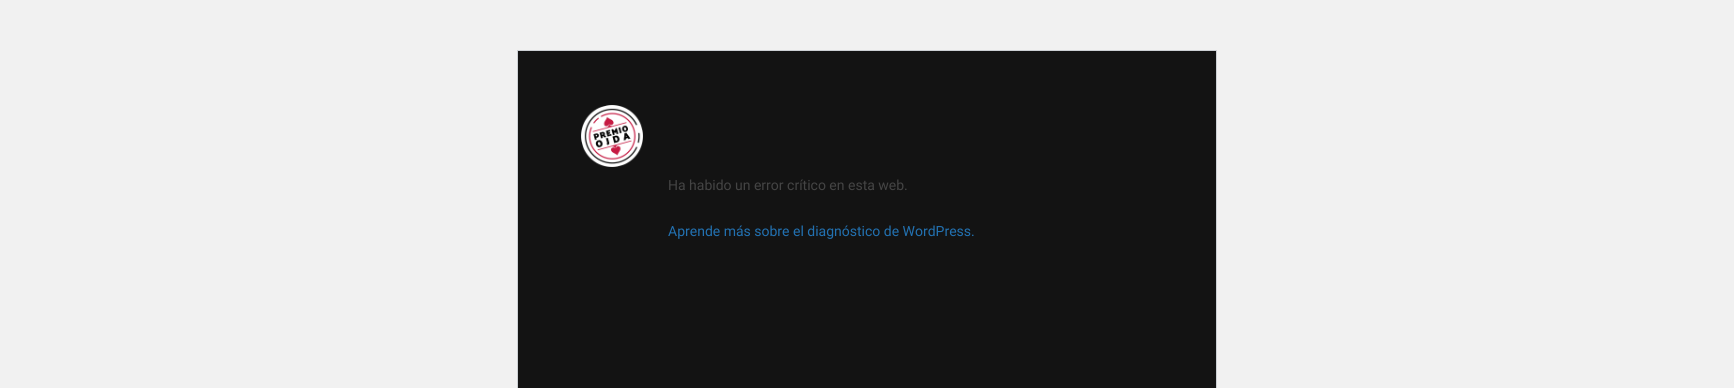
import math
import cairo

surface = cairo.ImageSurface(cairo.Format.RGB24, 1734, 388)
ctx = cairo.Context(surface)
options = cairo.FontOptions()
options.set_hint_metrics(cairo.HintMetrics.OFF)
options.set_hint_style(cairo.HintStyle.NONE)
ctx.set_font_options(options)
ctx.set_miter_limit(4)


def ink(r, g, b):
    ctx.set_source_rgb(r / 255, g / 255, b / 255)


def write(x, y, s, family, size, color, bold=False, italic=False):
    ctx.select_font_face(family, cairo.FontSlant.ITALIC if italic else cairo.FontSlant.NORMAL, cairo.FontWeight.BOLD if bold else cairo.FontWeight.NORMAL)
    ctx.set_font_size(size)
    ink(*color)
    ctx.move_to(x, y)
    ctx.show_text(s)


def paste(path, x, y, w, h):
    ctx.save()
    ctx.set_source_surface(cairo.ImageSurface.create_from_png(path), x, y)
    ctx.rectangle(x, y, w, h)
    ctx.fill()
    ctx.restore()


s1 = dict(family="Roboto", size=14, color=(68, 68, 68))
s2 = dict(family="Roboto", size=14, color=(34, 113, 177))

ink(241, 241, 241)
ctx.paint()
ink(19, 19, 19)
ctx.rectangle(517.5, 50.5, 699, 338)
ctx.fill_preserve()
ink(204, 208, 212)
ctx.set_line_width(1)
ctx.stroke()
paste("pic1.png", 581, 105, 62, 62)
write(668, 190, "Ha habido un error crítico en esta web.", **s1)
write(668, 236, "Aprende más sobre el diagnóstico de WordPress.", **s2)
surface.write_to_png("screenshot.png")
